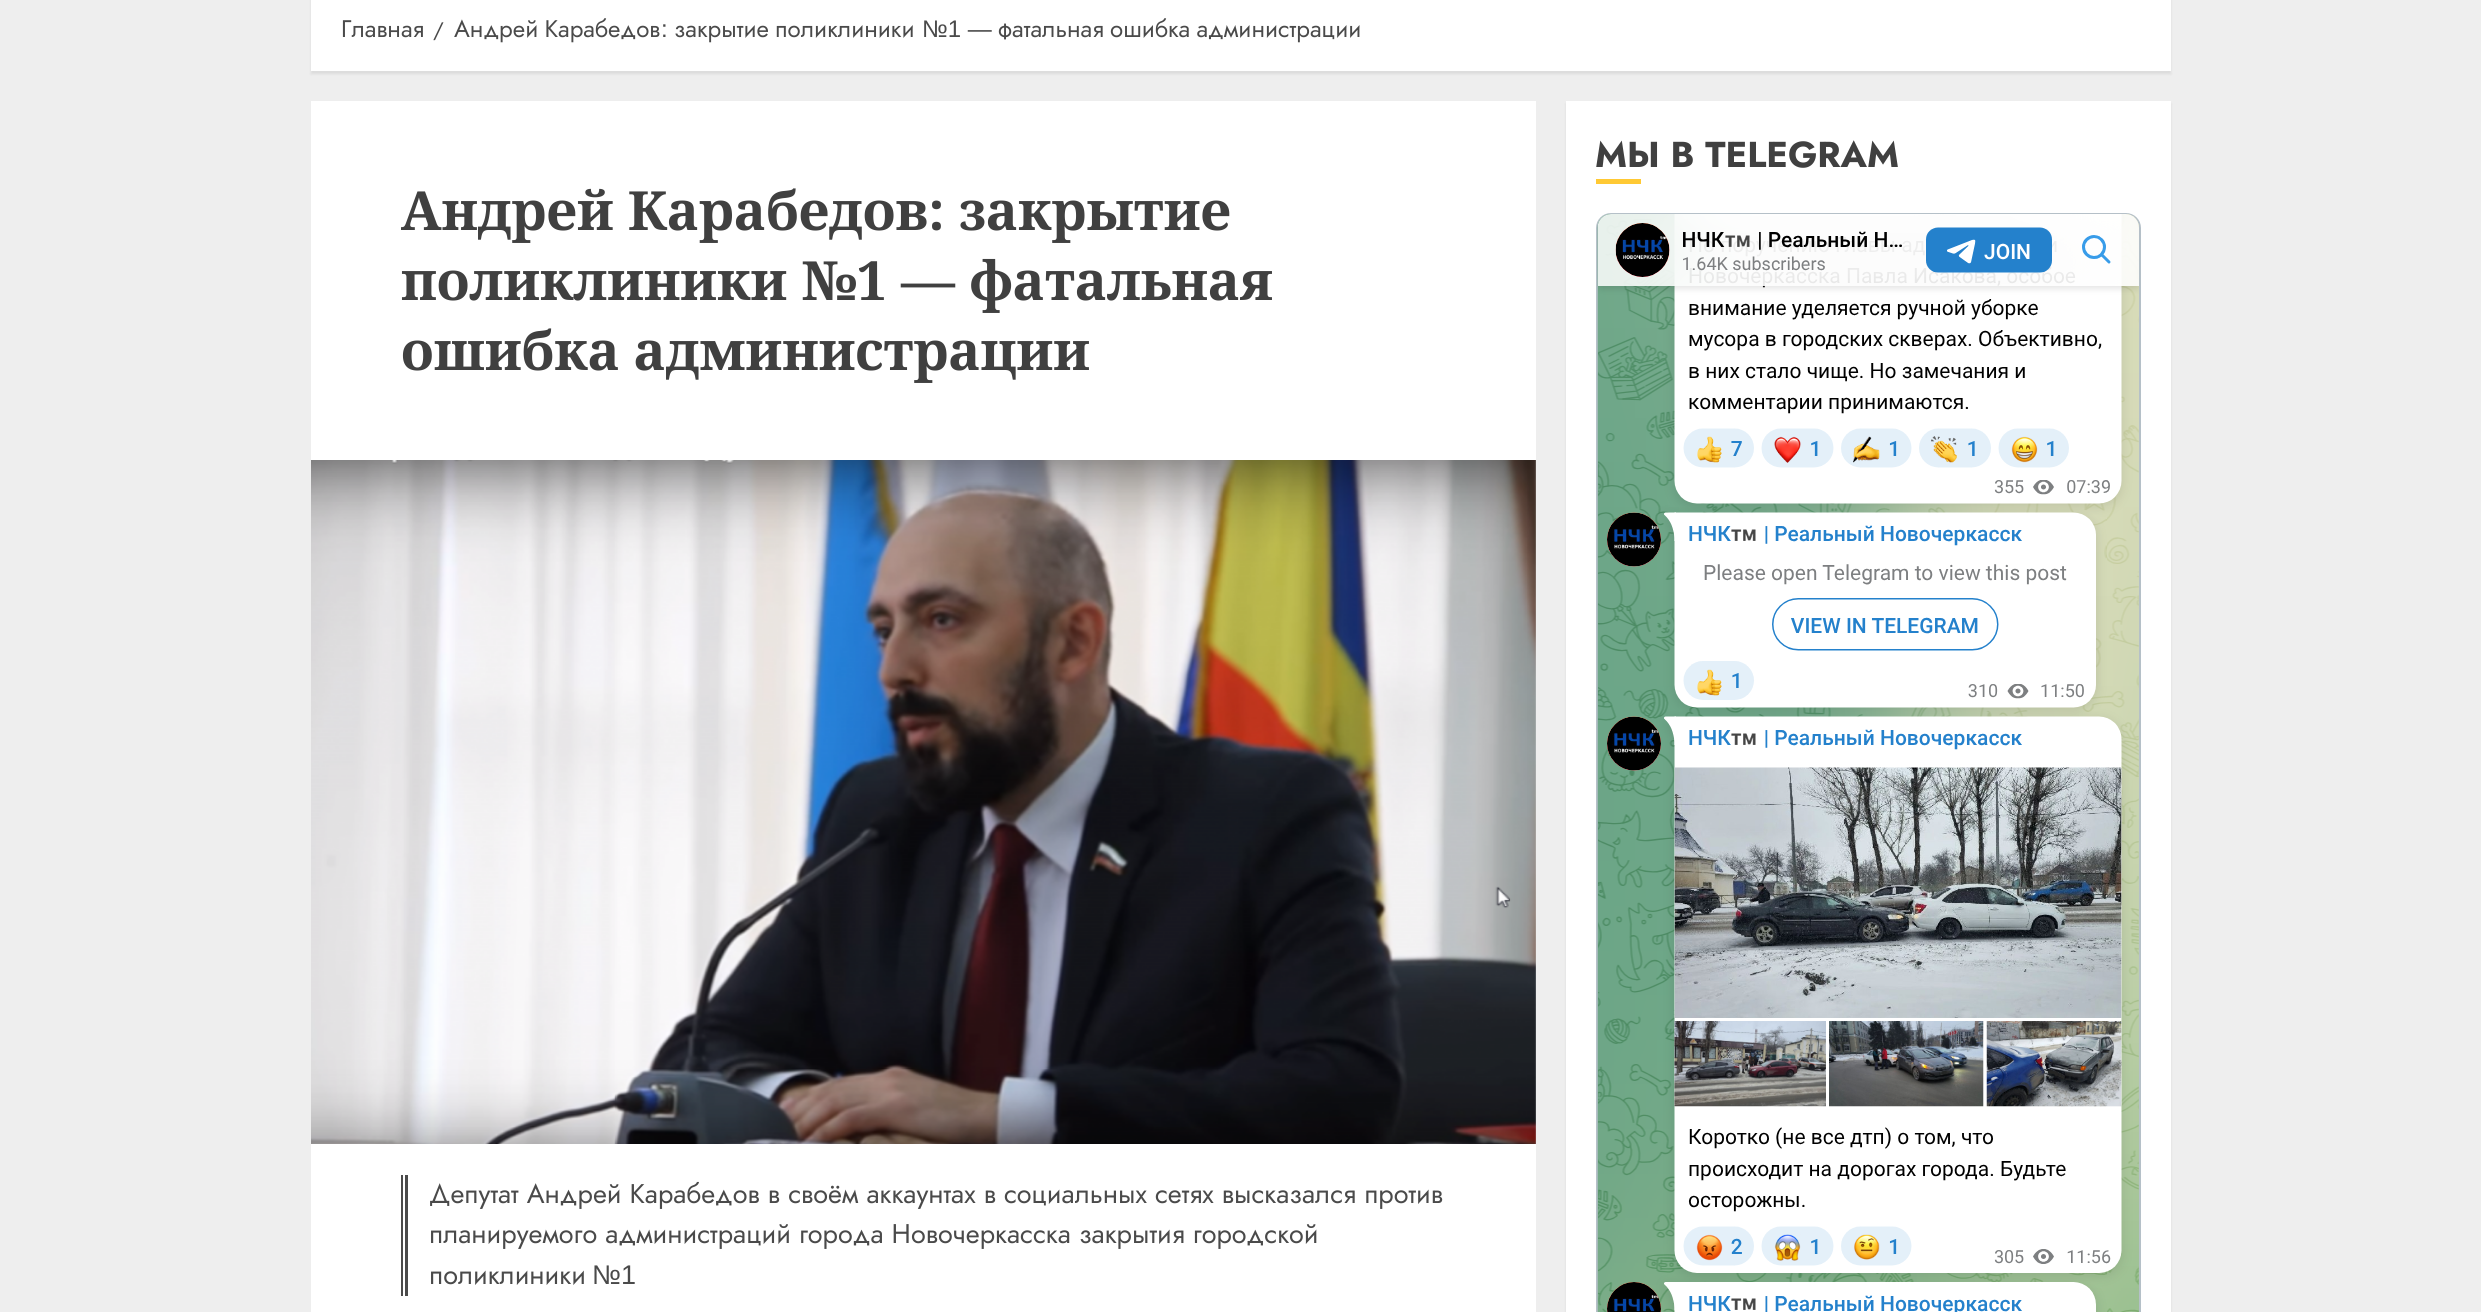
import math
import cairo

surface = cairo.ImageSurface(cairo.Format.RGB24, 2481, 1312)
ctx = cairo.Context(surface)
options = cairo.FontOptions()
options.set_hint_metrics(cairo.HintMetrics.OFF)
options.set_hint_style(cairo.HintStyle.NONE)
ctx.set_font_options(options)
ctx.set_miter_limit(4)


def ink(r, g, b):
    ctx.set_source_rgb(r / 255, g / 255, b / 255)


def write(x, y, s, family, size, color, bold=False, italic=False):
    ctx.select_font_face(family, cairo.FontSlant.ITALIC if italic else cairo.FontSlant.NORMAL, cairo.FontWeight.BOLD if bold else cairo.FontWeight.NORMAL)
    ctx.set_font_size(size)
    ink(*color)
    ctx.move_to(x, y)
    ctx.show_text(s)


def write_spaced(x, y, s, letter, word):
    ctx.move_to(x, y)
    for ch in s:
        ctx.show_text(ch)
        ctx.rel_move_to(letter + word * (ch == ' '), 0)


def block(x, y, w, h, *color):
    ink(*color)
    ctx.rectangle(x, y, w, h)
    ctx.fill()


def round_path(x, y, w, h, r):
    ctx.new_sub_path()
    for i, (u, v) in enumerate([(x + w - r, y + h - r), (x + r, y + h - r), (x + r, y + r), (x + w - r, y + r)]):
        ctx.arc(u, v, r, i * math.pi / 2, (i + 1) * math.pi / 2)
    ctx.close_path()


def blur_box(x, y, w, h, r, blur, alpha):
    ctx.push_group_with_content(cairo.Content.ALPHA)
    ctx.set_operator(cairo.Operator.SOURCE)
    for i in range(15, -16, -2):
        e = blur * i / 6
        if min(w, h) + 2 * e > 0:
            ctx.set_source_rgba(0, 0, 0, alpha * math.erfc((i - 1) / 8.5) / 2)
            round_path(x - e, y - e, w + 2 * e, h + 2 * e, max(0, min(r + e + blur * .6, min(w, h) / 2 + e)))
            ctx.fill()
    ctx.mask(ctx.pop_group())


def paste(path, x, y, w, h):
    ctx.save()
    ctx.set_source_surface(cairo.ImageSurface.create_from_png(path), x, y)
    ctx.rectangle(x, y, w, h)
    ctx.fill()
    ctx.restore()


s1 = dict(family="Jost", size=24, color=(74, 74, 74))
s2 = dict(family="Jost", size=21, color=(74, 74, 74))
s3 = dict(family="Liberation Sans", size=24, color=(74, 74, 74))
s4 = dict(family="Jost", size=36, color=(64, 64, 64), bold=True)
s5 = dict(family="Noto Serif", size=54, color=(64, 64, 64), bold=True)
s6 = dict(family="Jost", size=27, color=(74, 74, 74))
s7 = dict(family="Liberation Sans", size=27, color=(74, 74, 74))

ink(238, 238, 238)
ctx.paint()
ink(0, 0, 0)
blur_box(311, -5, 1860, 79, 0, 1.5, 0.08)
block(311, 0, 1860, 71, 255, 255, 255)
write(341, 37, "Главная", **s1)
write(433, 37, "/", **s2)
ctx.set_font_size(24)
write_spaced(454, 37, "Андрей Карабедов", 0, -1)
write(661, 37, ":", **s3)
ctx.select_font_face("Jost")
write_spaced(674, 37, "закрытие поликлиники", 0, -1)
write(922, 37, "№1 —", **s3)
ctx.select_font_face("Jost")
write_spaced(998, 37, "фатальная ошибка администрации", 0, -1)
ink(0, 0, 0)
blur_box(1566, 104, 605, 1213, 0, 1.5, 0.08)
block(1566, 101, 605, 1211, 255, 255, 255)
write(1595, 167, "МЫ В TELEGRAM", **s4)
block(1596, 179, 45, 5, 255, 201, 52)
round_path(1597, 214, 543, 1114, 14)
ink(181, 192, 200)
ctx.stroke()
paste("pic1.png", 1597, 214, 542, 1098)
block(311, 101, 1225, 1211, 255, 255, 255)
write(401, 230, "Андрей Карабедов: закрытие", **s5)
write(401, 300, "поликлиники №1 — фатальная", **s5)
write(401, 370, "ошибка администрации", **s5)
paste("pic2.png", 311, 460, 1225, 684)
block(401, 1175, 2, 121, 74, 74, 74)
block(405, 1175, 3, 121, 74, 74, 74)
write(429, 1203, "Депутат Андрей Карабедов в своём аккаунтах в социальных сетях высказался против", **s6)
write(429, 1243, "планируемого администраций города Новочеркасска закрытия городской", **s6)
write(429, 1284, "поликлиники", **s6)
write(592, 1284, "№1", **s7)
surface.write_to_png("screenshot.png")
